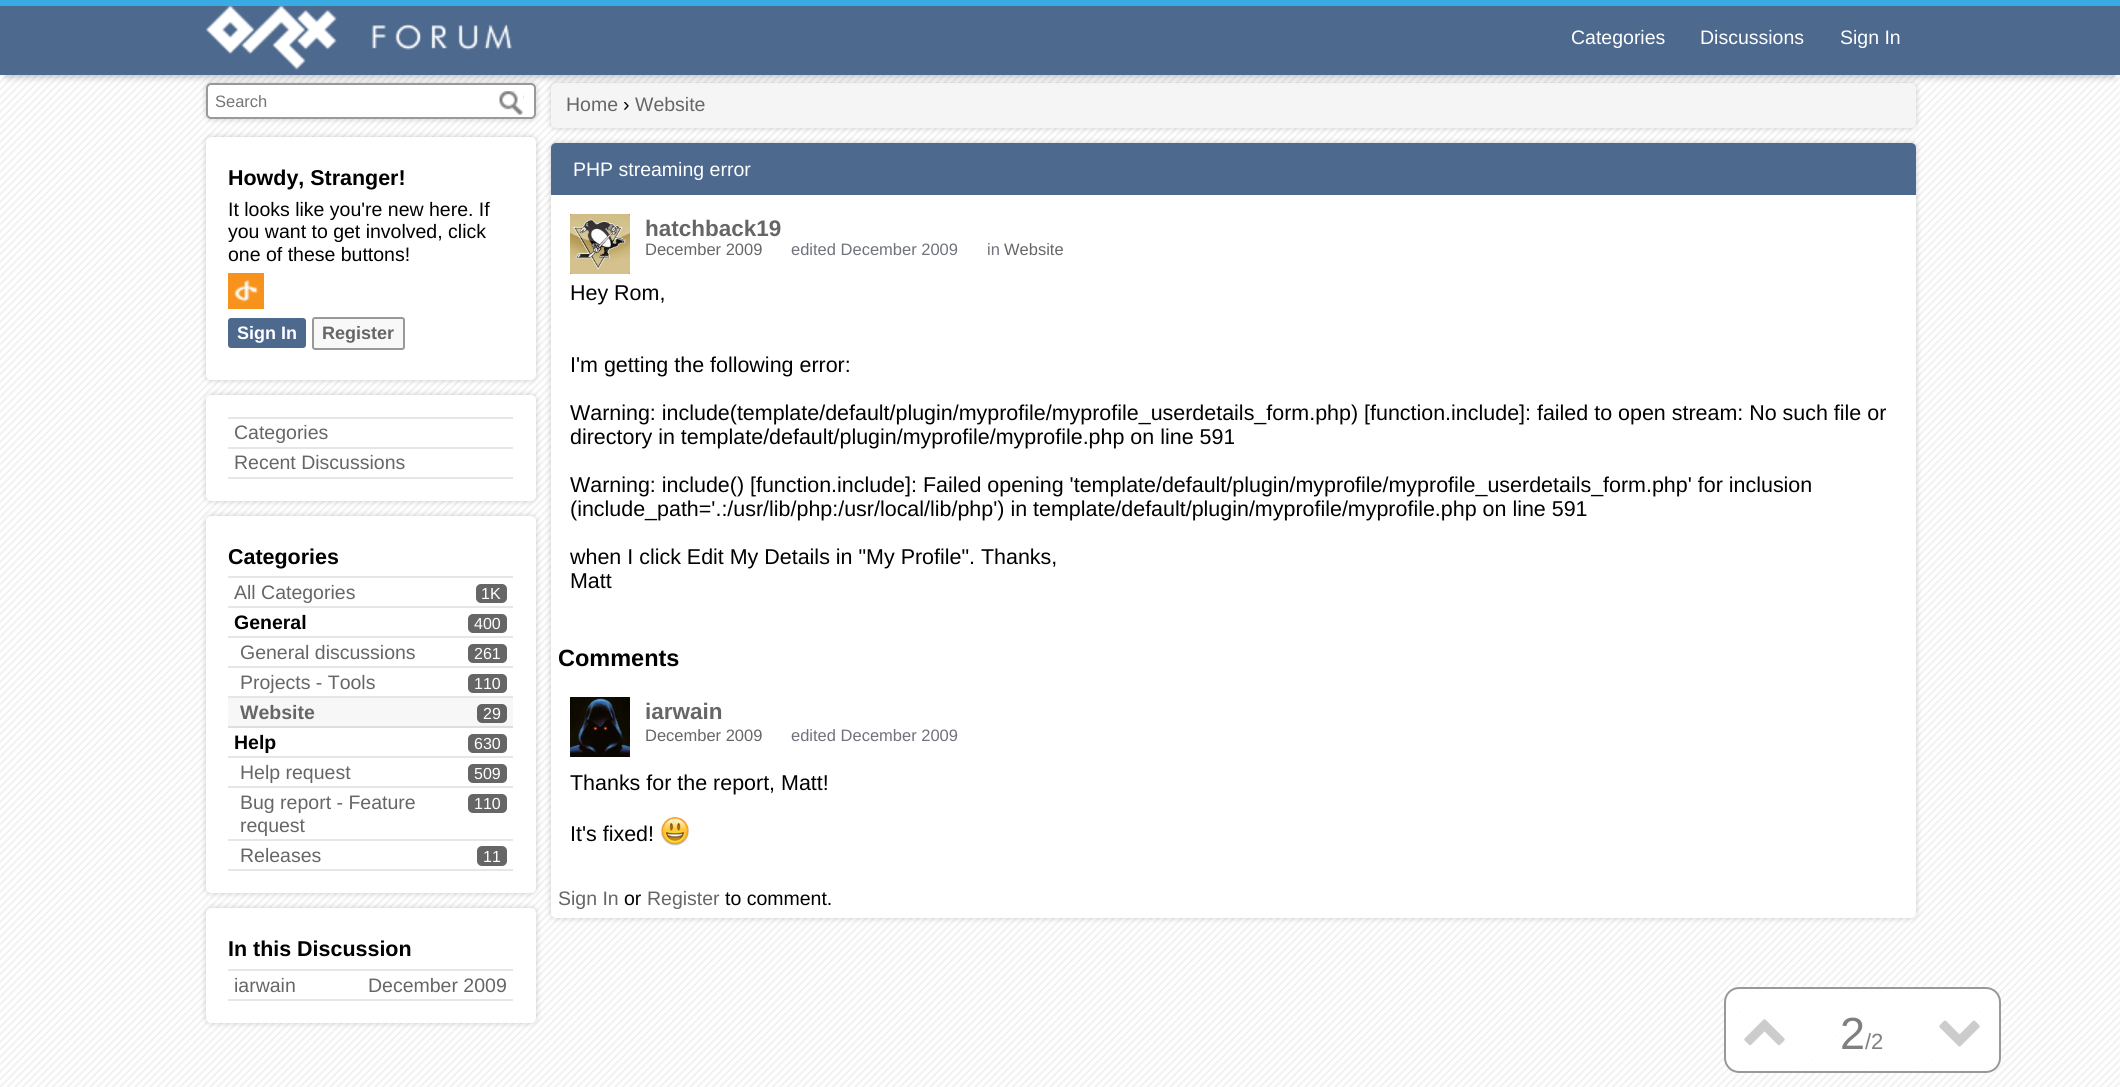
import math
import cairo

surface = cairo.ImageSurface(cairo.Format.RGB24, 2120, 1087)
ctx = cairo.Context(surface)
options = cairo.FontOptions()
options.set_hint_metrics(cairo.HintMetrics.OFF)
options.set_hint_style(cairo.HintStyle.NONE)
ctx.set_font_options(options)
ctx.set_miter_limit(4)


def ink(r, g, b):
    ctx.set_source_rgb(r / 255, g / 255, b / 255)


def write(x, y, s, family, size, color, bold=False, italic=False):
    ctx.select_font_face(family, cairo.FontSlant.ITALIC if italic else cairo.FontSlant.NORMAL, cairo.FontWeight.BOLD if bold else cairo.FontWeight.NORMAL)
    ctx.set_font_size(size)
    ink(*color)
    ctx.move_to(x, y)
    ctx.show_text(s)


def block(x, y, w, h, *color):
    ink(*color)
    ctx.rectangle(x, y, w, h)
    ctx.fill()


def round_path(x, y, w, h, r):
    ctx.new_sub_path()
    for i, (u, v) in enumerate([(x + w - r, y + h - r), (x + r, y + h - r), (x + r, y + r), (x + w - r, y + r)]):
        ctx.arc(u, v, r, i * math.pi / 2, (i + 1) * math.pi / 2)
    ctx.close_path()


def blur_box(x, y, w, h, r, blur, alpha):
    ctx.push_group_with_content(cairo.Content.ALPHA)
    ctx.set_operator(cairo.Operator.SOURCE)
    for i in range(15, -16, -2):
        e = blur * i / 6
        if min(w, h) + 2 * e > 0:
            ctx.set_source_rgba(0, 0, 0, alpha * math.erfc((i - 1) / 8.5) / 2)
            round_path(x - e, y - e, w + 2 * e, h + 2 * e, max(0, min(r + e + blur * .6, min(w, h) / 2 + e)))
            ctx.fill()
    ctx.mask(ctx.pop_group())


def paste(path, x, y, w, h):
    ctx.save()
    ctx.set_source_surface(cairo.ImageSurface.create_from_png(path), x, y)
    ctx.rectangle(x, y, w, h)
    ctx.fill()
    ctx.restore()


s1 = dict(family="Liberation Sans", size=19.5, color=(255, 255, 255))
s2 = dict(family="Liberation Sans", size=16.5, color=(117, 117, 117))
s3 = dict(family="Liberation Sans", size=21.45, color=(0, 0, 0), bold=True)
s4 = dict(family="Liberation Sans", size=19.5, color=(0, 0, 0))
s5 = dict(family="Liberation Sans", size=18, color=(255, 255, 255), bold=True)
s6 = dict(family="Liberation Sans", size=18, color=(102, 102, 102), bold=True)
s7 = dict(family="Liberation Sans", size=19.5, color=(102, 102, 102))
s8 = dict(family="Liberation Sans", size=16, color=(255, 255, 255))
s9 = dict(family="Liberation Sans", size=19.5, color=(0, 0, 0), bold=True)
s10 = dict(family="Liberation Sans", size=19.5, color=(102, 102, 102), bold=True)
s11 = dict(family="Liberation Sans", size=22.5, color=(102, 102, 102), bold=True)
s12 = dict(family="Liberation Sans", size=16.5, color=(102, 102, 102))
s13 = dict(family="Liberation Sans", size=16.5, color=(112, 114, 124))
s14 = dict(family="Liberation Sans", size=21.45, color=(0, 0, 0))
s15 = dict(family="Liberation Sans", size=23.5, color=(0, 0, 0), bold=True)
s16 = dict(family="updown", size=45, color=(204, 204, 204))
s17 = dict(family="Liberation Sans", size=45, color=(127, 127, 127))
s18 = dict(family="Liberation Sans", size=22, color=(127, 127, 127))

ink(255, 255, 255)
ctx.paint()
paste("pic1.png", 0, 75, 2120, 1012)
ink(0, 0, 0)
blur_box(206, 83, 330, 36, 5, 3, 0.2)
ink(255, 255, 255)
round_path(206, 83, 330, 36, 5)
ctx.fill()
round_path(207, 84, 328, 34, 4)
ctx.set_source_rgba(0, 0, 0, 0.4)
ctx.stroke()
ink(0, 0, 0)
blur_box(551, 83, 1365, 45, 5, 3, 0.2)
ink(245, 245, 245)
round_path(551, 83, 1365, 45, 5)
ctx.fill()
ink(0, 0, 0)
blur_box(6, 15, 2109, 63, 0, 3, 0.2)
block(0, 0, 2120, 6, 56, 171, 227)
block(0, 6, 2120, 69, 77, 105, 142)
paste("pic2.png", 205, 6, 307, 64)
write(1571, 44, "Categories", **s1)
write(1700, 44, "Discussions", **s1)
write(1840, 44, "Sign In", **s1)
write(215, 107, "Search", **s2)
paste("pic3.png", 499, 91, 25, 24)
ink(0, 0, 0)
blur_box(206, 137, 330, 243, 5, 3, 0.2)
ink(255, 255, 255)
round_path(206, 137, 330, 243, 5)
ctx.fill()
write(228, 185, "Howdy, Stranger!", **s3)
write(228, 216, "It looks like you're new here. If", **s4)
write(228, 238, "you want to get involved, click", **s4)
write(228, 261, "one of these buttons!", **s4)
block(228, 273, 36, 36, 247, 146, 28)
paste("pic4.png", 234, 279, 25, 23)
ink(77, 105, 142)
round_path(228, 318, 78, 30, 3)
ctx.fill()
write(237, 339, "Sign In", **s5)
ink(248, 248, 248)
round_path(313, 318, 91, 31, 2)
ctx.fill_preserve()
ink(153, 153, 153)
ctx.stroke()
write(322, 339, "Register", **s6)
ink(0, 0, 0)
blur_box(206, 395, 330, 106, 5, 3, 0.2)
ink(255, 255, 255)
round_path(206, 395, 330, 106, 5)
ctx.fill()
block(228, 417, 285, 2, 230, 230, 230)
block(228, 447, 285, 2, 230, 230, 230)
write(234, 439, "Categories", **s7)
block(228, 477, 285, 2, 230, 230, 230)
write(234, 469, "Recent Discussions", **s7)
ink(0, 0, 0)
blur_box(206, 516, 330, 377, 5, 3, 0.2)
ink(255, 255, 255)
round_path(206, 516, 330, 377, 5)
ctx.fill()
write(228, 564, "Categories", **s3)
block(228, 576, 285, 2, 230, 230, 230)
block(228, 606, 285, 2, 230, 230, 230)
write(234, 599, "All Categories", **s7)
round_path(476, 584, 31, 19, 5)
ctx.fill()
write(481, 599, "1K", **s8)
block(228, 636, 285, 2, 230, 230, 230)
write(234, 629, "General", **s9)
ink(102, 102, 102)
round_path(468, 614, 39, 19, 5)
ctx.fill()
write(474, 629, "400", **s8)
block(228, 666, 285, 2, 230, 230, 230)
write(240, 659, "General discussions", **s7)
round_path(468, 644, 39, 19, 5)
ctx.fill()
write(474, 659, "261", **s8)
block(228, 696, 285, 2, 230, 230, 230)
write(240, 689, "Projects - Tools", **s7)
round_path(468, 674, 39, 19, 5)
ctx.fill()
write(474, 689, "110", **s8)
block(228, 698, 285, 28, 247, 247, 247)
block(228, 726, 285, 2, 222, 222, 222)
write(240, 719, "Website", **s10)
ink(99, 99, 99)
round_path(477, 704, 30, 19, 5)
ctx.fill()
write(483, 719, "29", **s8)
block(228, 756, 285, 2, 230, 230, 230)
write(234, 749, "Help", **s9)
ink(102, 102, 102)
round_path(468, 734, 39, 19, 5)
ctx.fill()
write(474, 749, "630", **s8)
block(228, 786, 285, 2, 230, 230, 230)
write(240, 779, "Help request", **s7)
round_path(468, 764, 39, 19, 5)
ctx.fill()
write(474, 779, "509", **s8)
block(228, 839, 285, 2, 230, 230, 230)
write(240, 809, "Bug report - Feature", **s7)
round_path(468, 794, 39, 19, 5)
ctx.fill()
write(474, 809, "110", **s8)
write(240, 832, "request", **s7)
block(228, 869, 285, 2, 230, 230, 230)
write(240, 862, "Releases", **s7)
round_path(477, 846, 30, 20, 5)
ctx.fill()
write(483, 862, "11", **s8)
ink(0, 0, 0)
blur_box(206, 908, 330, 115, 5, 3, 0.2)
ink(255, 255, 255)
round_path(206, 908, 330, 115, 5)
ctx.fill()
write(228, 956, "In this Discussion", **s3)
block(228, 969, 285, 2, 230, 230, 230)
block(228, 999, 285, 2, 230, 230, 230)
write(234, 992, "iarwain", **s7)
write(368, 992, "December 2009", **s7)
write(566, 111, "Home", **s7)
write(623, 111, "›", **s4)
write(635, 111, "Website", **s7)
ink(0, 0, 0)
blur_box(551, 143, 1365, 775, 5, 3, 0.2)
ink(255, 255, 255)
round_path(551, 143, 1365, 775, 5)
ctx.fill()
ink(77, 105, 142)
ctx.new_path()
ctx.move_to(556, 143)
ctx.line_to(1911, 143)
ctx.curve_to(1914, 143, 1916, 145, 1916, 148)
ctx.line_to(1916, 195)
ctx.line_to(551, 195)
ctx.line_to(551, 148)
ctx.curve_to(551, 145, 553, 143, 556, 143)
ctx.close_path()
ctx.fill()
write(573, 176, "PHP streaming error", **s1)
paste("pic5.png", 570, 214, 60, 60)
write(645, 236, "hatchback19", **s11)
write(645, 255, "December 2009", **s12)
write(791, 255, "edited December 2009", **s13)
write(987, 255, "in", **s13)
write(1004, 255, "Website", **s12)
write(570, 300, "Hey Rom,", **s14)
write(570, 372, "I'm getting the following error:", **s14)
write(570, 420, "Warning: include(template/default/plugin/myprofile/myprofile_userdetails_form.php) [function.include]: failed to open stream: No such file or", **s14)
write(570, 444, "directory in template/default/plugin/myprofile/myprofile.php on line 591", **s14)
write(570, 492, "Warning: include() [function.include]: Failed opening 'template/default/plugin/myprofile/myprofile_userdetails_form.php' for inclusion", **s14)
write(570, 516, "(include_path='.:/usr/lib/php:/usr/local/lib/php') in template/default/plugin/myprofile/myprofile.php on line 591", **s14)
write(570, 564, "when I click Edit My Details in \"My Profile\". Thanks,", **s14)
write(570, 588, "Matt", **s14)
write(558, 666, "Comments", **s15)
paste("pic6.png", 570, 697, 60, 60)
write(645, 719, "iarwain", **s11)
write(645, 741, "December 2009", **s12)
write(791, 741, "edited December 2009", **s13)
write(570, 790, "Thanks for the report, Matt!", **s14)
write(570, 841, "It's fixed!", **s14)
paste("pic7.png", 661, 817, 28, 29)
write(558, 905, "Sign In", **s7)
write(624, 905, "or", **s4)
write(647, 905, "Register", **s7)
write(725, 905, "to comment.", **s4)
ctx.set_source_rgba(1, 1, 1, 0.9)
round_path(1724, 987, 277, 86, 15)
ctx.fill()
round_path(1725, 988, 275, 84, 14)
ctx.set_source_rgba(0, 0, 0, 0.4)
ctx.stroke()
write(1742, 1049, "▲", **s16)
write(1840, 1049, "2", **s17)
write(1865, 1049, "/2", **s18)
write(1937, 1049, "▼", **s16)
surface.write_to_png("screenshot.png")
